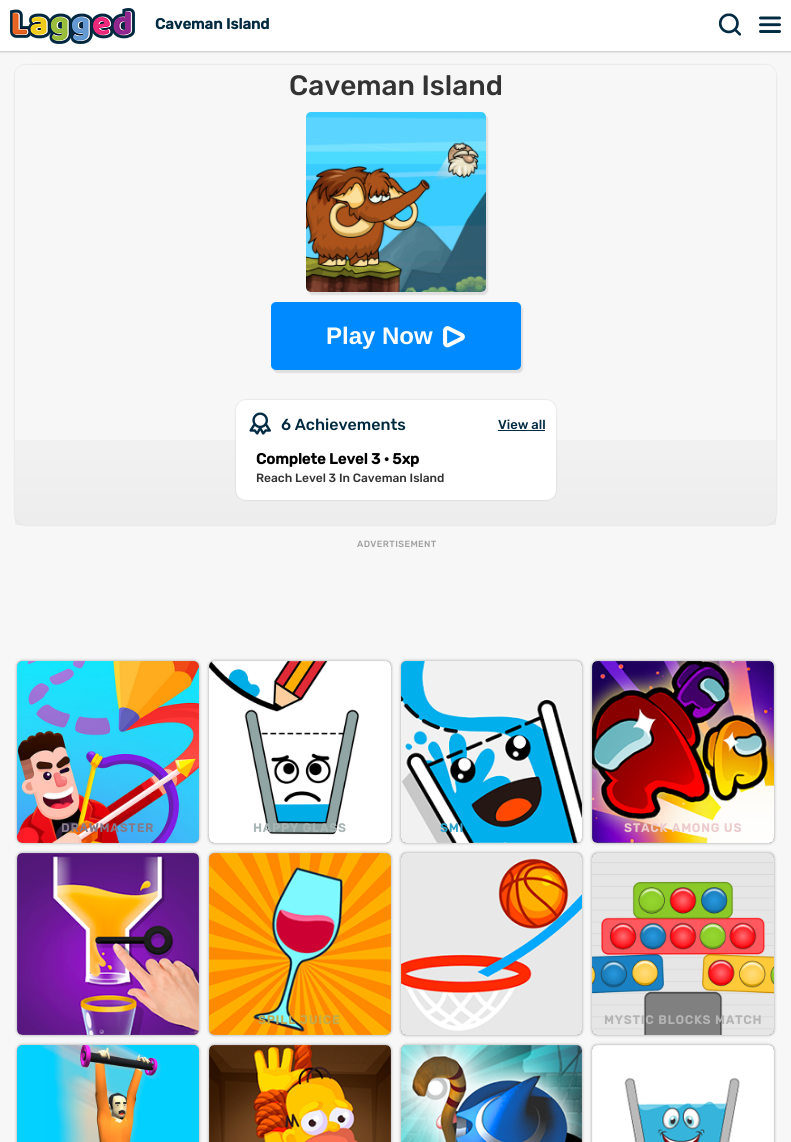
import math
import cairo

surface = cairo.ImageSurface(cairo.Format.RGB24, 791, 1142)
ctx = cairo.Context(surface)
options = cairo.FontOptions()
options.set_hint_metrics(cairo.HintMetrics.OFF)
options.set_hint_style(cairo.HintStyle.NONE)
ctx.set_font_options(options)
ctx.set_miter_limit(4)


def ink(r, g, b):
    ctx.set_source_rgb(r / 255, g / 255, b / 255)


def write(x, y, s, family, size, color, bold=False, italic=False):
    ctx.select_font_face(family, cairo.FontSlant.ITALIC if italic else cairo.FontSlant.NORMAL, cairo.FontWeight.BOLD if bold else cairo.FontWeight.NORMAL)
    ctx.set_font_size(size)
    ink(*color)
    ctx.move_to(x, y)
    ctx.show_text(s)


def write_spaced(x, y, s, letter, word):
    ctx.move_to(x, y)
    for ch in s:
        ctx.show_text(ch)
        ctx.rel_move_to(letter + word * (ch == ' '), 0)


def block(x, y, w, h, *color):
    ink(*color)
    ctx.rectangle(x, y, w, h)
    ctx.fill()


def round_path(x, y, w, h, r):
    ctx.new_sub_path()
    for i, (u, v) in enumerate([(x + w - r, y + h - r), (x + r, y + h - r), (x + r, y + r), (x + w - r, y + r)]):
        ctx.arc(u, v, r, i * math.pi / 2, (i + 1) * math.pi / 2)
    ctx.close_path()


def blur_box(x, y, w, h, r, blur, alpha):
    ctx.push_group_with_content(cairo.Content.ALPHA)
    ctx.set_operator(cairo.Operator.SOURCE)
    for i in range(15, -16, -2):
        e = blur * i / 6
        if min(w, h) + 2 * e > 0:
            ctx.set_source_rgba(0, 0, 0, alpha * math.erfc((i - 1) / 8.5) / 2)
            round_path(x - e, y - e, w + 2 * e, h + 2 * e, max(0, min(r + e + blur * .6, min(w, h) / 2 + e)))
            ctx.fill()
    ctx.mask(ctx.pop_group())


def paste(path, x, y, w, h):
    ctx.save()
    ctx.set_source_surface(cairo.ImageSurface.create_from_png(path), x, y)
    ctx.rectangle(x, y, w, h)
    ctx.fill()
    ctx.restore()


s1 = dict(family="Rubik", size=15, color=(0, 42, 65), bold=True)
s2 = dict(family="Rubik Medium", size=28, color=(51, 51, 51))
s3 = dict(family="Liberation Sans", size=24, color=(255, 255, 255), bold=True)
s4 = dict(family="Rubik Medium", size=16, color=(0, 42, 65))
s5 = dict(family="Rubik Medium", size=13, color=(0, 42, 65))
s6 = dict(family="Rubik", size=15, color=(0, 0, 0), bold=True)
s7 = dict(family="Rubik Medium", size=12, color=(51, 51, 51))

ink(247, 247, 247)
ctx.paint()
ink(0, 0, 0)
blur_box(-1, -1, 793, 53, 0, 1, 0.2)
block(0, 0, 791, 51, 255, 255, 255)
paste("pic1.png", 10, 8, 125, 36)
write(155, 29, "Caveman Island", **s1)
paste("pic2.png", 719, 13, 22, 23)
paste("pic3.png", 759, 16, 22, 17)
ctx.save()
ctx.set_fill_rule(cairo.FillRule.EVEN_ODD)
ctx.new_path()
ctx.move_to(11, 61)
ctx.line_to(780, 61)
ctx.line_to(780, 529)
ctx.line_to(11, 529)
ctx.close_path()
ctx.move_to(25, 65)
ctx.line_to(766, 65)
ctx.curve_to(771.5, 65, 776, 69.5, 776, 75)
ctx.line_to(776, 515)
ctx.curve_to(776, 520.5, 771.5, 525, 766, 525)
ctx.line_to(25, 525)
ctx.curve_to(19.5, 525, 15, 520.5, 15, 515)
ctx.line_to(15, 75)
ctx.curve_to(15, 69.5, 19.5, 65, 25, 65)
ctx.close_path()
ctx.clip()
ink(0, 0, 0)
blur_box(15, 65, 761, 460, 10, 1, 0.15)
ctx.restore()
gradient = cairo.LinearGradient(396, 65, 396, 525)
gradient.add_color_stop_rgba(0.6, 0, 0, 0, 0)
gradient.add_color_stop_rgba(1, 0, 0, 0, 0.04)
ctx.set_source(gradient)
ctx.rectangle(15, 440, 761, 85)
ctx.fill()
write(289, 95, "Caveman Island", **s2)
ink(0, 0, 0)
blur_box(308, 115, 180, 180, 5, 0.5, 0.1)
paste("pic4.png", 306, 112, 180, 180)
blur_box(273, 305, 250, 68, 5, 0.5, 0.1)
ink(0, 138, 255)
round_path(271, 302, 250, 68, 5)
ctx.fill()
write(326, 344, "Play Now", **s3)
paste("pic5.png", 443, 326, 22, 22)
ink(0, 0, 0)
blur_box(236, 400, 320, 100, 10, 1, 0.15)
ink(255, 255, 255)
round_path(236, 400, 320, 100, 10)
ctx.fill()
paste("pic6.png", 249, 412, 22, 23)
write(281, 430, "6 Achievements", **s4)
write(498, 429, "View all", **s5)
block(498, 430, 47, 1, 0, 42, 65)
write(256, 464, "Complete Level 3 · 5xp", **s6)
write(256, 482, "Reach Level 3 In Caveman Island", **s7)
ctx.set_font_size(9)
ink(160, 160, 160)
write_spaced(357, 547, "ADVERTISEMENT", 0.4, 0)
ink(0, 0, 0)
blur_box(17, 661, 182, 182, 5, 1.5, 0.35)
ctx.set_source_rgba(0, 0, 0, 0.18)
round_path(17, 661, 182, 182, 5)
ctx.fill()
paste("pic7.png", 17, 661, 182, 182)
ctx.select_font_face("Rubik", cairo.FontSlant.NORMAL, cairo.FontWeight.BOLD)
ctx.set_font_size(12)
ink(133, 122, 137)
write_spaced(61, 832, "DRAWMASTER", 1, 0)
ink(0, 0, 0)
blur_box(209, 661, 182, 182, 5, 1.5, 0.35)
ctx.set_source_rgba(0, 0, 0, 0.18)
round_path(209, 661, 182, 182, 5)
ctx.fill()
paste("pic8.png", 209, 661, 182, 182)
ink(168, 181, 181)
write_spaced(253, 832, "HAPPY GLASS", 1, 0)
ink(0, 0, 0)
blur_box(401, 661, 181, 182, 5, 1.5, 0.35)
ctx.set_source_rgba(0, 0, 0, 0.18)
round_path(401, 661, 181, 182, 5)
ctx.fill()
paste("pic9.png", 401, 661, 181, 182)
ink(45, 163, 204)
write_spaced(440, 832, "SMI", 1, 0)
ink(0, 0, 0)
blur_box(592, 661, 182, 182, 5, 1.5, 0.35)
ctx.set_source_rgba(0, 0, 0, 0.18)
round_path(592, 661, 182, 182, 5)
ctx.fill()
paste("pic10.png", 592, 661, 182, 182)
ink(237, 203, 205)
write_spaced(624, 832, "STACK AMONG US", 1, 0)
ink(0, 0, 0)
blur_box(17, 853, 182, 182, 5, 1.5, 0.35)
ctx.set_source_rgba(0, 0, 0, 0.18)
round_path(17, 853, 182, 182, 5)
ctx.fill()
paste("pic11.png", 17, 853, 182, 182)
ink(0, 0, 0)
blur_box(209, 853, 182, 182, 5, 1.5, 0.35)
ctx.set_source_rgba(0, 0, 0, 0.18)
round_path(209, 853, 182, 182, 5)
ctx.fill()
paste("pic12.png", 209, 853, 182, 182)
ink(193, 171, 79)
write_spaced(258, 1024, "SPILL JUICE", 1, 0)
ink(0, 0, 0)
blur_box(401, 853, 181, 182, 5, 1.5, 0.35)
ctx.set_source_rgba(0, 0, 0, 0.18)
round_path(401, 853, 181, 182, 5)
ctx.fill()
paste("pic13.png", 401, 853, 181, 182)
ink(0, 0, 0)
blur_box(592, 853, 182, 182, 5, 1.5, 0.35)
ctx.set_source_rgba(0, 0, 0, 0.18)
round_path(592, 853, 182, 182, 5)
ctx.fill()
paste("pic14.png", 592, 853, 182, 182)
ink(180, 180, 180)
write_spaced(604, 1024, "MYSTIC BLOCKS MATCH", 1, 0)
ink(0, 0, 0)
blur_box(17, 1045, 182, 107, 5, 1.5, 0.35)
ctx.set_source_rgba(0, 0, 0, 0.18)
round_path(17, 1045, 182, 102, 5)
ctx.fill()
paste("pic15.png", 17, 1045, 182, 97)
ink(0, 0, 0)
blur_box(209, 1045, 182, 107, 5, 1.5, 0.35)
ctx.set_source_rgba(0, 0, 0, 0.18)
round_path(209, 1045, 182, 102, 5)
ctx.fill()
paste("pic16.png", 209, 1045, 182, 97)
ink(0, 0, 0)
blur_box(401, 1045, 181, 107, 5, 1.5, 0.35)
ctx.set_source_rgba(0, 0, 0, 0.18)
round_path(401, 1045, 181, 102, 5)
ctx.fill()
paste("pic17.png", 401, 1045, 181, 97)
ink(0, 0, 0)
blur_box(592, 1045, 182, 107, 5, 1.5, 0.35)
ctx.set_source_rgba(0, 0, 0, 0.18)
round_path(592, 1045, 182, 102, 5)
ctx.fill()
paste("pic18.png", 592, 1045, 182, 97)
surface.write_to_png("screenshot.png")
